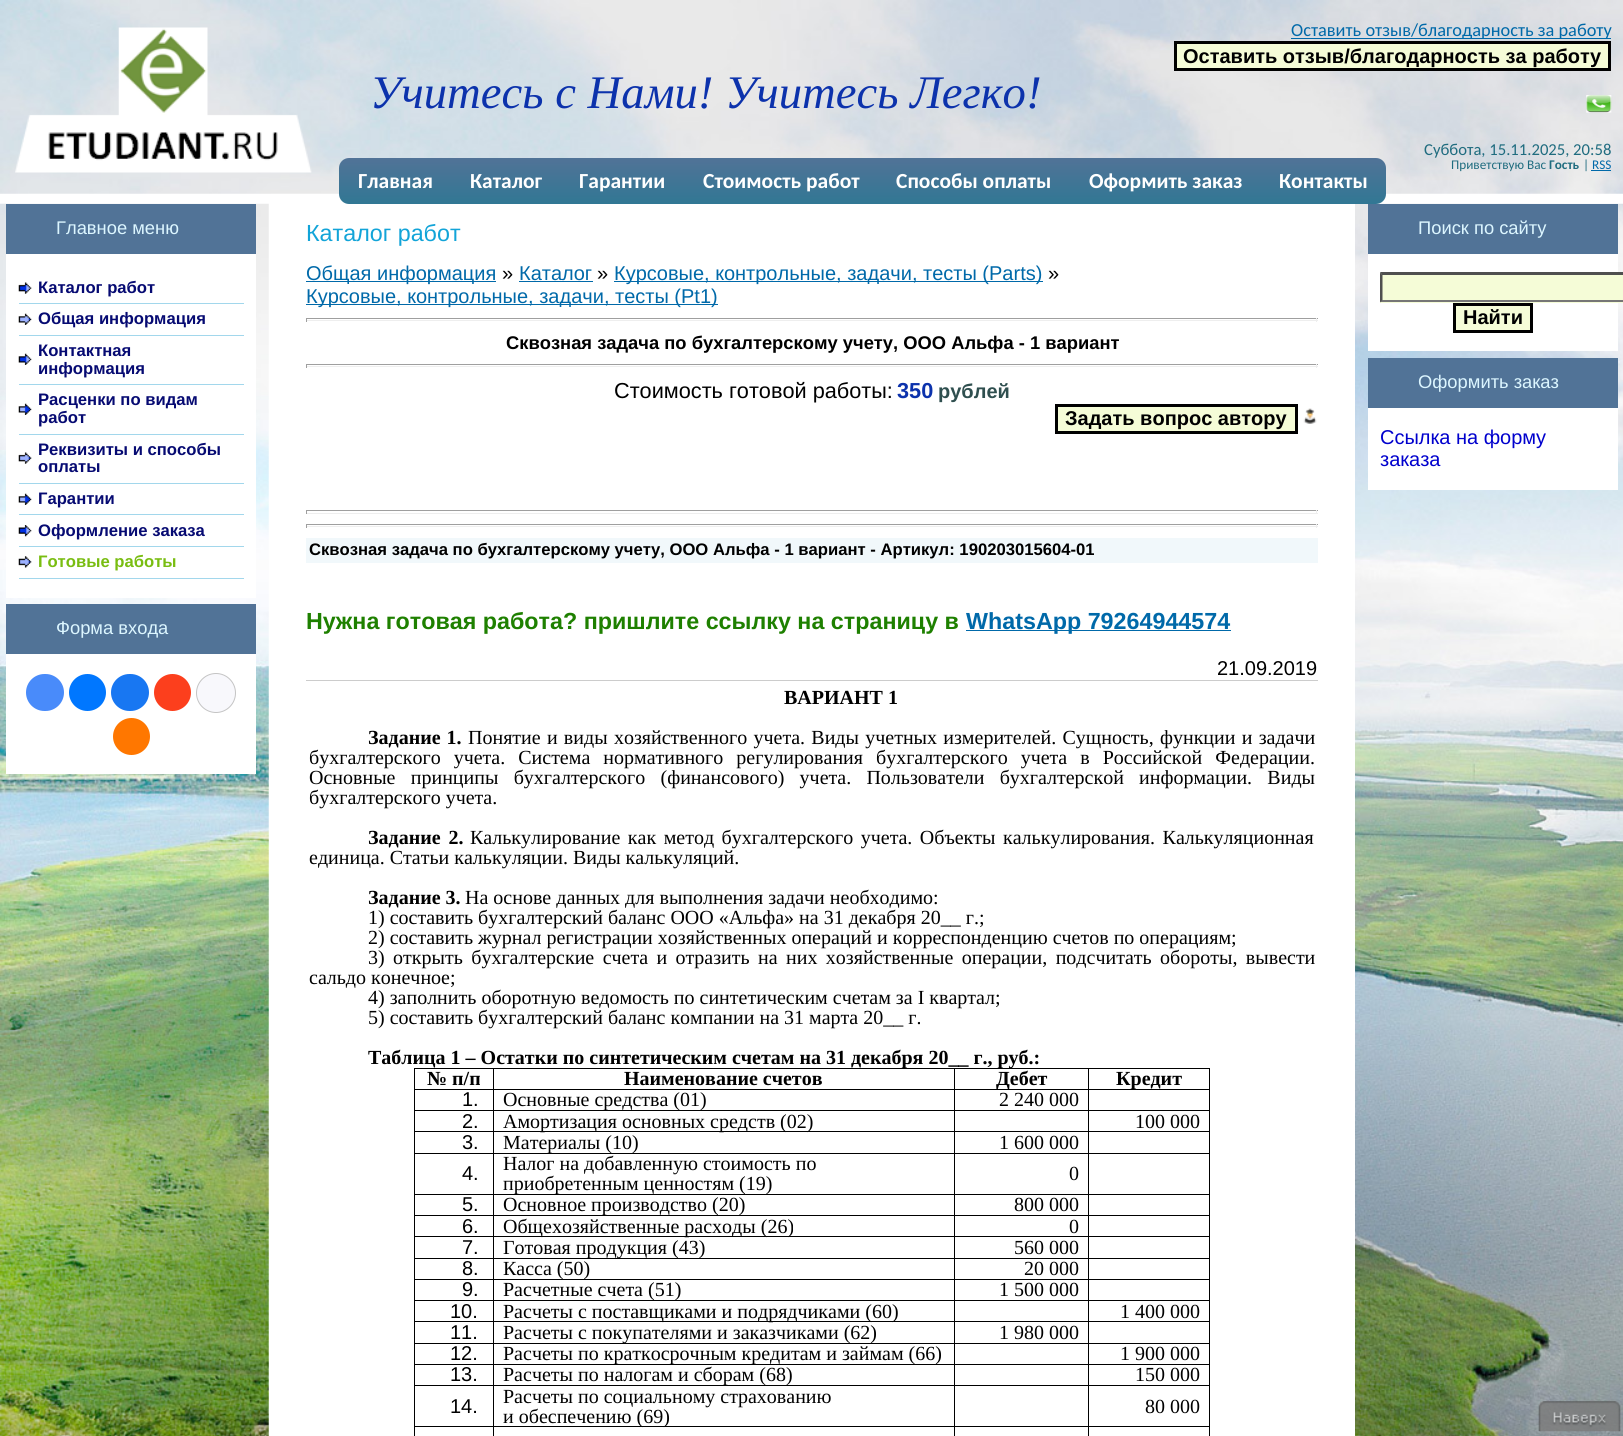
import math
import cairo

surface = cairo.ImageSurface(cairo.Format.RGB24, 1623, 1436)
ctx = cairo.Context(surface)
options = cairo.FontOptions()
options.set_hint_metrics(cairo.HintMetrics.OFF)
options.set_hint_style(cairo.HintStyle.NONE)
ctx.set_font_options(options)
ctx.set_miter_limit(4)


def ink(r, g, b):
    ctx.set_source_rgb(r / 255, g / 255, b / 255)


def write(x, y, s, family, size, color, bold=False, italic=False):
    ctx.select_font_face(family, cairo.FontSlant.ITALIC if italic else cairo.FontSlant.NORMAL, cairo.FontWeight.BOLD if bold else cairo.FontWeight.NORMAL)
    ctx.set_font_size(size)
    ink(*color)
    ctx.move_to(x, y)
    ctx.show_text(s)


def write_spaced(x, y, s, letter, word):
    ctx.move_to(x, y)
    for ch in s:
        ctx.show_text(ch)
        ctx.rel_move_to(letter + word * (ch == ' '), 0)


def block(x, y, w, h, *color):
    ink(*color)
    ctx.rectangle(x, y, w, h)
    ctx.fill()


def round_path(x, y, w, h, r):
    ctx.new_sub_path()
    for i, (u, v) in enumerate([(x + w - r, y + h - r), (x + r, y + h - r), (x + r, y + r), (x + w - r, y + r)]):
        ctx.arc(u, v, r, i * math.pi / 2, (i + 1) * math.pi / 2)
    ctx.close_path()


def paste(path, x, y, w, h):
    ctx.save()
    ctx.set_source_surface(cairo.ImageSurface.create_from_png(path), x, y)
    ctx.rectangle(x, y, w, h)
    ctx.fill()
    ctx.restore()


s1 = dict(family="Carlito", size=18.35, color=(0, 105, 169))
s2 = dict(family="Liberation Sans", size=20, color=(0, 0, 0), bold=True)
s3 = dict(family="Liberation Serif", size=46.7, color=(12, 50, 172), italic=True)
s4 = dict(family="Carlito", size=16.65, color=(31, 108, 127))
s5 = dict(family="Carlito", size=13.25, color=(31, 108, 127))
s6 = dict(family="Carlito", size=13.25, color=(31, 108, 127), bold=True)
s7 = dict(family="Carlito", size=13.25, color=(0, 105, 169))
s8 = dict(family="Carlito", size=21.5, color=(255, 255, 255), bold=True)
s9 = dict(family="Liberation Sans", size=18.35, color=(220, 246, 255))
s10 = dict(family="Liberation Sans", size=16.65, color=(6, 10, 114), bold=True)
s11 = dict(family="Liberation Sans", size=16.65, color=(121, 189, 17), bold=True)
s12 = dict(family="Liberation Sans", size=23.3, color=(18, 164, 216))
s13 = dict(family="Liberation Sans", size=20, color=(0, 105, 169))
s14 = dict(family="Liberation Sans", size=20, color=(0, 0, 0))
s15 = dict(family="Liberation Sans", size=18.35, color=(0, 0, 0), bold=True)
s16 = dict(family="Liberation Sans", size=21.7, color=(0, 0, 0))
s17 = dict(family="Liberation Sans", size=21.7, color=(12, 50, 172), bold=True)
s18 = dict(family="Liberation Sans", size=20, color=(47, 79, 79), bold=True)
s19 = dict(family="Liberation Sans", size=16.65, color=(0, 0, 0), bold=True)
s20 = dict(family="Liberation Sans", size=23.3, color=(30, 128, 0), bold=True)
s21 = dict(family="Liberation Sans", size=23.3, color=(0, 105, 169), bold=True)
s22 = dict(family="Liberation Serif", size=20, color=(0, 0, 0), bold=True)
s23 = dict(family="Liberation Serif", size=20, color=(0, 0, 0))
s24 = dict(family="Liberation Sans", size=20, color=(0, 0, 205))

ink(255, 255, 255)
ctx.paint()
paste("pic1.png", 0, 0, 1623, 194)
paste("pic2.png", 15, 27, 297, 146)
block(1291, 38, 320, 1, 0, 105, 169)
write(1291, 36, "Оставить отзыв/благодарность за работу", **s1)
ink(245, 252, 215)
ctx.rectangle(1175.5, 42.5, 434, 27)
ctx.fill_preserve()
ink(0, 0, 0)
ctx.set_line_width(3)
ctx.stroke()
write(1183, 63, "Оставить отзыв/благодарность за работу", **s2)
write(370, 108, "Учитесь с Нами! Учитесь Легко!", **s3)
write(1424, 155, "Суббота, 15.11.2025, 20:58", **s4)
write(1451, 169, "Приветствую Вас", **s5)
write(1549, 169, "Гость", **s6)
write(1583, 169, "|", **s5)
write(1592, 169, "RSS", **s7)
block(1591, 170, 20, 1, 0, 105, 169)
paste("pic3.png", 1586, 95, 26, 18)
gradient = cairo.LinearGradient(339, 158, 339, 204)
gradient.add_color_stop_rgba(0, 0.318, 0.451, 0.592, 1)
gradient.add_color_stop_rgba(1, 0.192, 0.467, 0.58, 1)
ctx.set_source(gradient)
ctx.new_path()
ctx.move_to(349, 158)
ctx.line_to(451, 158)
ctx.line_to(451, 204)
ctx.line_to(349, 204)
ctx.curve_to(343.5, 204, 339, 199.5, 339, 194)
ctx.line_to(339, 168)
ctx.curve_to(339, 162.5, 343.5, 158, 349, 158)
ctx.close_path()
ctx.fill()
write(358, 188, "Главная", **s8)
gradient = cairo.LinearGradient(451, 158, 451, 204)
gradient.add_color_stop_rgba(0, 0.318, 0.451, 0.592, 1)
gradient.add_color_stop_rgba(1, 0.192, 0.467, 0.58, 1)
ctx.set_source(gradient)
ctx.rectangle(451, 158, 109, 46)
ctx.fill()
write(470, 188, "Каталог", **s8)
gradient = cairo.LinearGradient(560, 158, 560, 204)
gradient.add_color_stop_rgba(0, 0.318, 0.451, 0.592, 1)
gradient.add_color_stop_rgba(1, 0.192, 0.467, 0.58, 1)
ctx.set_source(gradient)
ctx.rectangle(560, 158, 124, 46)
ctx.fill()
write(579, 188, "Гарантии", **s8)
gradient = cairo.LinearGradient(684, 158, 684, 204)
gradient.add_color_stop_rgba(0, 0.318, 0.451, 0.592, 1)
gradient.add_color_stop_rgba(1, 0.192, 0.467, 0.58, 1)
ctx.set_source(gradient)
ctx.rectangle(684, 158, 194, 46)
ctx.fill()
write(703, 188, "Стоимость работ", **s8)
gradient = cairo.LinearGradient(878, 158, 878, 204)
gradient.add_color_stop_rgba(0, 0.318, 0.451, 0.592, 1)
gradient.add_color_stop_rgba(1, 0.192, 0.467, 0.58, 1)
ctx.set_source(gradient)
ctx.rectangle(878, 158, 192, 46)
ctx.fill()
write(896, 188, "Способы оплаты", **s8)
gradient = cairo.LinearGradient(1070, 158, 1070, 204)
gradient.add_color_stop_rgba(0, 0.318, 0.451, 0.592, 1)
gradient.add_color_stop_rgba(1, 0.192, 0.467, 0.58, 1)
ctx.set_source(gradient)
ctx.rectangle(1070, 158, 190, 46)
ctx.fill()
write(1089, 188, "Оформить заказ", **s8)
paste("pic13.png", 1355, 203, 268, 1233)
gradient = cairo.LinearGradient(1260, 158, 1260, 204)
gradient.add_color_stop_rgba(0, 0.318, 0.451, 0.592, 1)
gradient.add_color_stop_rgba(1, 0.192, 0.467, 0.58, 1)
ctx.set_source(gradient)
ctx.new_path()
ctx.move_to(1260, 158)
ctx.line_to(1376, 158)
ctx.curve_to(1381.5, 158, 1386, 162.5, 1386, 168)
ctx.line_to(1386, 194)
ctx.curve_to(1386, 199.5, 1381.5, 204, 1376, 204)
ctx.line_to(1260, 204)
ctx.close_path()
ctx.fill()
write(1279, 188, "Контакты", **s8)
paste("pic4.png", 0, 203, 269, 1233)
block(6, 254, 250, 344, 255, 255, 255)
block(6, 204, 250, 50, 81, 115, 151)
write(56, 234, "Главное меню", **s9)
paste("pic5.png", 18, 282, 14, 12)
block(19, 303, 225, 1, 162, 215, 236)
write(38, 293, "Каталог работ", **s10)
paste("pic6.png", 18, 313, 14, 12)
block(19, 335, 225, 1, 162, 215, 236)
write(38, 324, "Общая информация", **s10)
paste("pic7.png", 18, 353, 14, 12)
block(19, 384, 225, 1, 162, 215, 236)
write(38, 356, "Контактная", **s10)
write(38, 374, "информация", **s10)
paste("pic8.png", 18, 403, 14, 12)
block(19, 434, 225, 1, 162, 215, 236)
write(38, 405, "Расценки по видам", **s10)
write(38, 423, "работ", **s10)
paste("pic9.png", 18, 452, 14, 12)
block(19, 483, 225, 1, 162, 215, 236)
write(38, 455, "Реквизиты и способы", **s10)
write(38, 472, "оплаты", **s10)
paste("pic8.png", 18, 493, 14, 12)
block(19, 514, 225, 1, 162, 215, 236)
write(38, 504, "Гарантии", **s10)
paste("pic10.png", 18, 525, 14, 12)
block(19, 546, 225, 1, 162, 215, 236)
write(38, 536, "Оформление заказа", **s10)
paste("pic11.png", 18, 556, 14, 12)
block(19, 578, 225, 1, 162, 215, 236)
write(38, 567, "Готовые работы", **s11)
block(6, 654, 250, 120, 255, 255, 255)
block(6, 604, 250, 50, 81, 115, 151)
write(56, 634, "Форма входа", **s9)
ink(73, 139, 250)
round_path(26, 674, 38, 37, 18.5)
ctx.fill()
ink(0, 119, 255)
ctx.arc(87.5, 692.5, 18.5, 0, 2 * math.pi)
ctx.fill()
ink(24, 119, 242)
round_path(111, 674, 38, 37, 18.5)
ctx.fill()
ink(252, 63, 29)
ctx.arc(172.5, 692.5, 18.5, 0, 2 * math.pi)
ctx.fill()
ink(248, 248, 252)
ctx.arc(216, 693, 19.5, 0, 2 * math.pi)
ctx.fill_preserve()
ink(196, 196, 196)
ctx.set_line_width(1)
ctx.stroke()
ink(255, 119, 0)
ctx.arc(131.5, 736.5, 18.5, 0, 2 * math.pi)
ctx.fill()
write(306, 241, "Каталог работ", **s12)
block(306, 281, 190, 1, 0, 105, 169)
write(306, 280, "Общая информация", **s13)
write(502, 280, "»", **s14)
write(519, 280, "Каталог", **s13)
block(519, 281, 74, 1, 0, 105, 169)
write(597, 280, "»", **s14)
block(614, 281, 429, 1, 0, 105, 169)
write(614, 280, "Курсовые, контрольные, задачи, тесты (Parts)", **s13)
write(1048, 280, "»", **s14)
block(306, 304, 412, 1, 0, 105, 169)
write(306, 303, "Курсовые, контрольные, задачи, тесты (Pt1)", **s13)
block(306, 318, 1012, 1, 159, 159, 159)
block(1316, 318, 1, 4, 238, 238, 238)
block(306, 320, 1012, 1, 238, 238, 238)
block(306, 318, 1, 4, 159, 159, 159)
write(506, 349, "Сквозная задача по бухгалтерскому учету, ООО Альфа - 1 вариант", **s15)
block(306, 364, 1012, 1, 159, 159, 159)
block(1316, 364, 1, 4, 238, 238, 238)
block(306, 366, 1012, 1, 238, 238, 238)
block(306, 364, 1, 4, 159, 159, 159)
write(614, 398, "Стоимость готовой работы:", **s16)
write(897, 398, "350", **s17)
write(938, 398, "рублей", **s18)
ink(245, 252, 215)
ctx.rectangle(1056.5, 405.5, 240, 27)
ctx.fill_preserve()
ink(0, 0, 0)
ctx.set_line_width(3)
ctx.stroke()
write(1065, 425, "Задать вопрос автору", **s2)
paste("pic12.png", 1303, 408, 14, 16)
block(306, 510, 1012, 1, 159, 159, 159)
block(1316, 510, 1, 4, 238, 238, 238)
block(306, 513, 1012, 1, 238, 238, 238)
block(306, 510, 1, 4, 159, 159, 159)
block(306, 524, 1012, 1, 159, 159, 159)
block(1316, 524, 1, 4, 238, 238, 238)
block(306, 526, 1012, 1, 238, 238, 238)
block(306, 524, 1, 4, 159, 159, 159)
block(306, 538, 1012, 25, 241, 248, 251)
write(309, 555, "Сквозная задача по бухгалтерскому учету, ООО Альфа - 1 вариант - Артикул: 190203015604-01", **s19)
write(306, 629, "Нужна готовая работа? пришлите ссылку на страницу в", **s20)
block(966, 630, 265, 1, 0, 105, 169)
write(966, 629, "WhatsApp 79264944574", **s21)
write(1217, 675, "21.09.2019", **s14)
block(306, 680, 1012, 1, 204, 204, 204)
write(784, 704, "ВАРИАНТ 1", **s22)
write_spaced(368, 744, "Задание 1.", 0, 1)
ctx.select_font_face("Liberation Serif")
write_spaced(468, 744, "Понятие и виды хозяйственного учета. Виды учетных измерителей. Сущность, функции и задачи", 0, 1.25)
write_spaced(309, 764, "бухгалтерского учета. Система нормативного регулирования бухгалтерского учета в Российской Федерации.", 0, 8)
write_spaced(309, 784, "Основные принципы бухгалтерского (финансового) учета. Пользователи бухгалтерской информации. Виды", 0, 10.25)
write(309, 804, "бухгалтерского учета.", **s23)
ctx.select_font_face("Liberation Serif", cairo.FontSlant.NORMAL, cairo.FontWeight.BOLD)
write_spaced(368, 844, "Задание 2.", 0, 3)
ctx.select_font_face("Liberation Serif")
write_spaced(470, 844, "Калькулирование как метод бухгалтерского учета. Объекты калькулирования. Калькуляционная", 0, 2.5)
write(309, 864, "единица. Статьи калькуляции. Виды калькуляций.", **s23)
write(368, 904, "Задание 3.", **s22)
write(465, 904, "На основе данных для выполнения задачи необходимо:", **s23)
write(368, 924, "1) составить бухгалтерский баланс ООО «Альфа» на 31 декабря 20__ г.;", **s23)
write(368, 944, "2) составить журнал регистрации хозяйственных операций и корреспонденцию счетов по операциям;", **s23)
write_spaced(368, 964, "3) открыть бухгалтерские счета и отразить на них хозяйственные операции, подсчитать обороты, вывести", 0, 3.4)
write(309, 984, "сальдо конечное;", **s23)
write(368, 1004, "4) заполнить оборотную ведомость по синтетическим счетам за I квартал;", **s23)
write(368, 1024, "5) составить бухгалтерский баланс компании на 31 марта 20__ г.", **s23)
block(1088, 1068, 122, 1, 0, 0, 0)
block(1088, 1089, 122, 1, 0, 0, 0)
block(1088, 1110, 122, 1, 0, 0, 0)
block(1088, 1131, 122, 1, 0, 0, 0)
block(1088, 1153, 122, 1, 0, 0, 0)
block(1088, 1194, 122, 1, 0, 0, 0)
block(1088, 1215, 122, 1, 0, 0, 0)
block(1088, 1236, 122, 1, 0, 0, 0)
block(1088, 1258, 122, 1, 0, 0, 0)
block(1088, 1279, 122, 1, 0, 0, 0)
block(1088, 1300, 122, 1, 0, 0, 0)
block(1088, 1321, 122, 1, 0, 0, 0)
block(1088, 1343, 122, 1, 0, 0, 0)
block(1088, 1364, 122, 1, 0, 0, 0)
block(1088, 1385, 122, 1, 0, 0, 0)
block(1088, 1426, 122, 1, 0, 0, 0)
block(1088, 1426, 1, 10, 0, 0, 0)
block(954, 1426, 135, 1, 0, 0, 0)
block(1088, 1385, 1, 43, 0, 0, 0)
block(954, 1385, 135, 1, 0, 0, 0)
block(1088, 1364, 1, 22, 0, 0, 0)
block(954, 1364, 135, 1, 0, 0, 0)
block(1088, 1343, 1, 22, 0, 0, 0)
block(954, 1343, 135, 1, 0, 0, 0)
block(1088, 1321, 1, 23, 0, 0, 0)
block(954, 1321, 135, 1, 0, 0, 0)
block(1088, 1300, 1, 23, 0, 0, 0)
block(954, 1300, 135, 1, 0, 0, 0)
block(1088, 1279, 1, 22, 0, 0, 0)
block(954, 1279, 135, 1, 0, 0, 0)
block(1088, 1258, 1, 22, 0, 0, 0)
block(954, 1258, 135, 1, 0, 0, 0)
block(1088, 1236, 1, 23, 0, 0, 0)
block(954, 1236, 135, 1, 0, 0, 0)
block(1088, 1215, 1, 23, 0, 0, 0)
block(954, 1215, 135, 1, 0, 0, 0)
block(1088, 1194, 1, 22, 0, 0, 0)
block(954, 1194, 135, 1, 0, 0, 0)
block(1088, 1153, 1, 42, 0, 0, 0)
block(954, 1153, 135, 1, 0, 0, 0)
block(1088, 1131, 1, 23, 0, 0, 0)
block(954, 1131, 135, 1, 0, 0, 0)
block(1088, 1110, 1, 23, 0, 0, 0)
block(954, 1110, 135, 1, 0, 0, 0)
block(1088, 1089, 1, 22, 0, 0, 0)
block(954, 1089, 135, 1, 0, 0, 0)
block(1088, 1068, 1, 22, 0, 0, 0)
block(954, 1068, 135, 1, 0, 0, 0)
block(954, 1426, 1, 10, 0, 0, 0)
block(493, 1426, 462, 1, 0, 0, 0)
block(954, 1385, 1, 43, 0, 0, 0)
block(493, 1385, 462, 1, 0, 0, 0)
block(954, 1364, 1, 22, 0, 0, 0)
block(493, 1364, 462, 1, 0, 0, 0)
block(954, 1343, 1, 22, 0, 0, 0)
block(493, 1343, 462, 1, 0, 0, 0)
block(954, 1321, 1, 23, 0, 0, 0)
block(493, 1321, 462, 1, 0, 0, 0)
block(954, 1300, 1, 23, 0, 0, 0)
block(493, 1300, 462, 1, 0, 0, 0)
block(954, 1279, 1, 22, 0, 0, 0)
block(493, 1279, 462, 1, 0, 0, 0)
block(954, 1258, 1, 22, 0, 0, 0)
block(493, 1258, 462, 1, 0, 0, 0)
block(954, 1236, 1, 23, 0, 0, 0)
block(493, 1236, 462, 1, 0, 0, 0)
block(954, 1215, 1, 23, 0, 0, 0)
block(493, 1215, 462, 1, 0, 0, 0)
block(954, 1194, 1, 22, 0, 0, 0)
block(493, 1194, 462, 1, 0, 0, 0)
block(954, 1153, 1, 42, 0, 0, 0)
block(493, 1153, 462, 1, 0, 0, 0)
block(954, 1131, 1, 23, 0, 0, 0)
block(493, 1131, 462, 1, 0, 0, 0)
block(954, 1110, 1, 23, 0, 0, 0)
block(493, 1110, 462, 1, 0, 0, 0)
block(954, 1089, 1, 22, 0, 0, 0)
block(493, 1089, 462, 1, 0, 0, 0)
block(954, 1068, 1, 22, 0, 0, 0)
block(493, 1068, 462, 1, 0, 0, 0)
block(493, 1426, 1, 10, 0, 0, 0)
block(414, 1426, 80, 1, 0, 0, 0)
block(493, 1385, 1, 43, 0, 0, 0)
block(414, 1385, 80, 1, 0, 0, 0)
block(493, 1364, 1, 22, 0, 0, 0)
block(414, 1364, 80, 1, 0, 0, 0)
block(493, 1343, 1, 22, 0, 0, 0)
block(414, 1343, 80, 1, 0, 0, 0)
block(493, 1321, 1, 23, 0, 0, 0)
block(414, 1321, 80, 1, 0, 0, 0)
block(493, 1300, 1, 23, 0, 0, 0)
block(414, 1300, 80, 1, 0, 0, 0)
block(493, 1279, 1, 22, 0, 0, 0)
block(414, 1279, 80, 1, 0, 0, 0)
block(493, 1258, 1, 22, 0, 0, 0)
block(414, 1258, 80, 1, 0, 0, 0)
block(493, 1236, 1, 23, 0, 0, 0)
block(414, 1236, 80, 1, 0, 0, 0)
block(493, 1215, 1, 23, 0, 0, 0)
block(414, 1215, 80, 1, 0, 0, 0)
block(493, 1194, 1, 22, 0, 0, 0)
block(414, 1194, 80, 1, 0, 0, 0)
block(493, 1153, 1, 42, 0, 0, 0)
block(414, 1153, 80, 1, 0, 0, 0)
block(493, 1131, 1, 23, 0, 0, 0)
block(414, 1131, 80, 1, 0, 0, 0)
block(493, 1110, 1, 23, 0, 0, 0)
block(414, 1110, 80, 1, 0, 0, 0)
block(493, 1089, 1, 22, 0, 0, 0)
block(414, 1089, 80, 1, 0, 0, 0)
block(493, 1068, 1, 22, 0, 0, 0)
block(414, 1068, 80, 1, 0, 0, 0)
block(414, 1426, 1, 10, 0, 0, 0)
block(414, 1385, 1, 43, 0, 0, 0)
block(414, 1364, 1, 22, 0, 0, 0)
block(414, 1343, 1, 22, 0, 0, 0)
block(414, 1321, 1, 23, 0, 0, 0)
block(414, 1300, 1, 23, 0, 0, 0)
block(414, 1279, 1, 22, 0, 0, 0)
block(414, 1258, 1, 22, 0, 0, 0)
block(414, 1236, 1, 23, 0, 0, 0)
block(414, 1215, 1, 23, 0, 0, 0)
block(414, 1194, 1, 22, 0, 0, 0)
block(414, 1153, 1, 42, 0, 0, 0)
block(414, 1131, 1, 23, 0, 0, 0)
block(414, 1110, 1, 23, 0, 0, 0)
block(414, 1089, 1, 22, 0, 0, 0)
block(414, 1068, 1, 22, 0, 0, 0)
write(368, 1064, "Таблица 1 – Остатки по синтетическим счетам на 31 декабря 20__ г., руб.:", **s22)
write(427, 1085, "№ п/п", **s22)
write(624, 1085, "Наименование счетов", **s22)
write(996, 1085, "Дебет", **s22)
block(1209, 1426, 1, 10, 0, 0, 0)
block(1209, 1385, 1, 43, 0, 0, 0)
block(1209, 1364, 1, 22, 0, 0, 0)
block(1209, 1343, 1, 22, 0, 0, 0)
block(1209, 1321, 1, 23, 0, 0, 0)
block(1209, 1300, 1, 23, 0, 0, 0)
block(1209, 1279, 1, 22, 0, 0, 0)
block(1209, 1258, 1, 22, 0, 0, 0)
block(1209, 1236, 1, 23, 0, 0, 0)
block(1209, 1215, 1, 23, 0, 0, 0)
block(1209, 1194, 1, 22, 0, 0, 0)
block(1209, 1153, 1, 42, 0, 0, 0)
block(1209, 1131, 1, 23, 0, 0, 0)
block(1209, 1110, 1, 23, 0, 0, 0)
block(1209, 1089, 1, 22, 0, 0, 0)
block(1209, 1068, 1, 22, 0, 0, 0)
write(1116, 1085, "Кредит", **s22)
write(462, 1106, "1.", **s14)
write(503, 1106, "Основные средства (01)", **s23)
write(999, 1106, "2 240 000", **s23)
write(462, 1128, "2.", **s14)
write(503, 1128, "Амортизация основных средств (02)", **s23)
write(1135, 1128, "100 000", **s23)
write(462, 1149, "3.", **s14)
write(503, 1149, "Материалы (10)", **s23)
write(999, 1149, "1 600 000", **s23)
write(462, 1180, "4.", **s14)
write(503, 1170, "Налог на добавленную стоимость по", **s23)
write(503, 1190, "приобретенным ценностям (19)", **s23)
write(1069, 1180, "0", **s23)
write(462, 1211, "5.", **s14)
write(503, 1211, "Основное производство (20)", **s23)
write(1014, 1211, "800 000", **s23)
write(462, 1233, "6.", **s14)
write(503, 1233, "Общехозяйственные расходы (26)", **s23)
write(1069, 1233, "0", **s23)
write(462, 1254, "7.", **s14)
write(503, 1254, "Готовая продукция (43)", **s23)
write(1014, 1254, "560 000", **s23)
write(462, 1275, "8.", **s14)
write(503, 1275, "Касса (50)", **s23)
write(1024, 1275, "20 000", **s23)
write(462, 1296, "9.", **s14)
write(503, 1296, "Расчетные счета (51)", **s23)
write(999, 1296, "1 500 000", **s23)
write(450, 1318, "10.", **s14)
write(503, 1318, "Расчеты с поставщиками и подрядчиками (60)", **s23)
write(1120, 1318, "1 400 000", **s23)
write(450, 1339, "11.", **s14)
write(503, 1339, "Расчеты с покупателями и заказчиками (62)", **s23)
write(999, 1339, "1 980 000", **s23)
write(450, 1360, "12.", **s14)
write(503, 1360, "Расчеты по краткосрочным кредитам и займам (66)", **s23)
write(1120, 1360, "1 900 000", **s23)
write(450, 1381, "13.", **s14)
write(503, 1381, "Расчеты по налогам и сборам (68)", **s23)
write(1135, 1381, "150 000", **s23)
write(450, 1413, "14.", **s14)
write(503, 1403, "Расчеты по социальному страхованию", **s23)
write(503, 1423, "и обеспечению (69)", **s23)
write(1145, 1413, "80 000", **s23)
block(1368, 254, 250, 97, 255, 255, 255)
block(1368, 204, 250, 50, 81, 115, 151)
write(1418, 234, "Поиск по сайту", **s9)
block(1380, 273, 243, 30, 245, 252, 215)
ink(79, 79, 79)
ctx.new_path()
ctx.move_to(1380, 272)
ctx.line_to(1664, 272)
ctx.line_to(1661, 275)
ctx.line_to(1382, 275)
ctx.close_path()
ctx.fill()
ink(118, 118, 118)
ctx.new_path()
ctx.move_to(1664, 302)
ctx.line_to(1380, 302)
ctx.line_to(1382, 300)
ctx.line_to(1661, 300)
ctx.close_path()
ctx.fill()
ink(79, 79, 79)
ctx.new_path()
ctx.move_to(1380, 302.5)
ctx.line_to(1380, 272.5)
ctx.line_to(1382.5, 275)
ctx.line_to(1382.5, 300)
ctx.close_path()
ctx.fill()
ink(245, 252, 215)
ctx.rectangle(1454.5, 304.5, 77, 27)
ctx.fill_preserve()
ink(0, 0, 0)
ctx.stroke()
write(1463, 324, "Найти", **s2)
block(1368, 408, 250, 82, 255, 255, 255)
block(1368, 358, 250, 50, 81, 115, 151)
write(1418, 388, "Оформить заказ", **s9)
write(1380, 444, "Ссылка на форму", **s24)
write(1380, 466, "заказа", **s24)
paste("pic14.png", 1538, 1401, 83, 31)
surface.write_to_png("screenshot.png")
